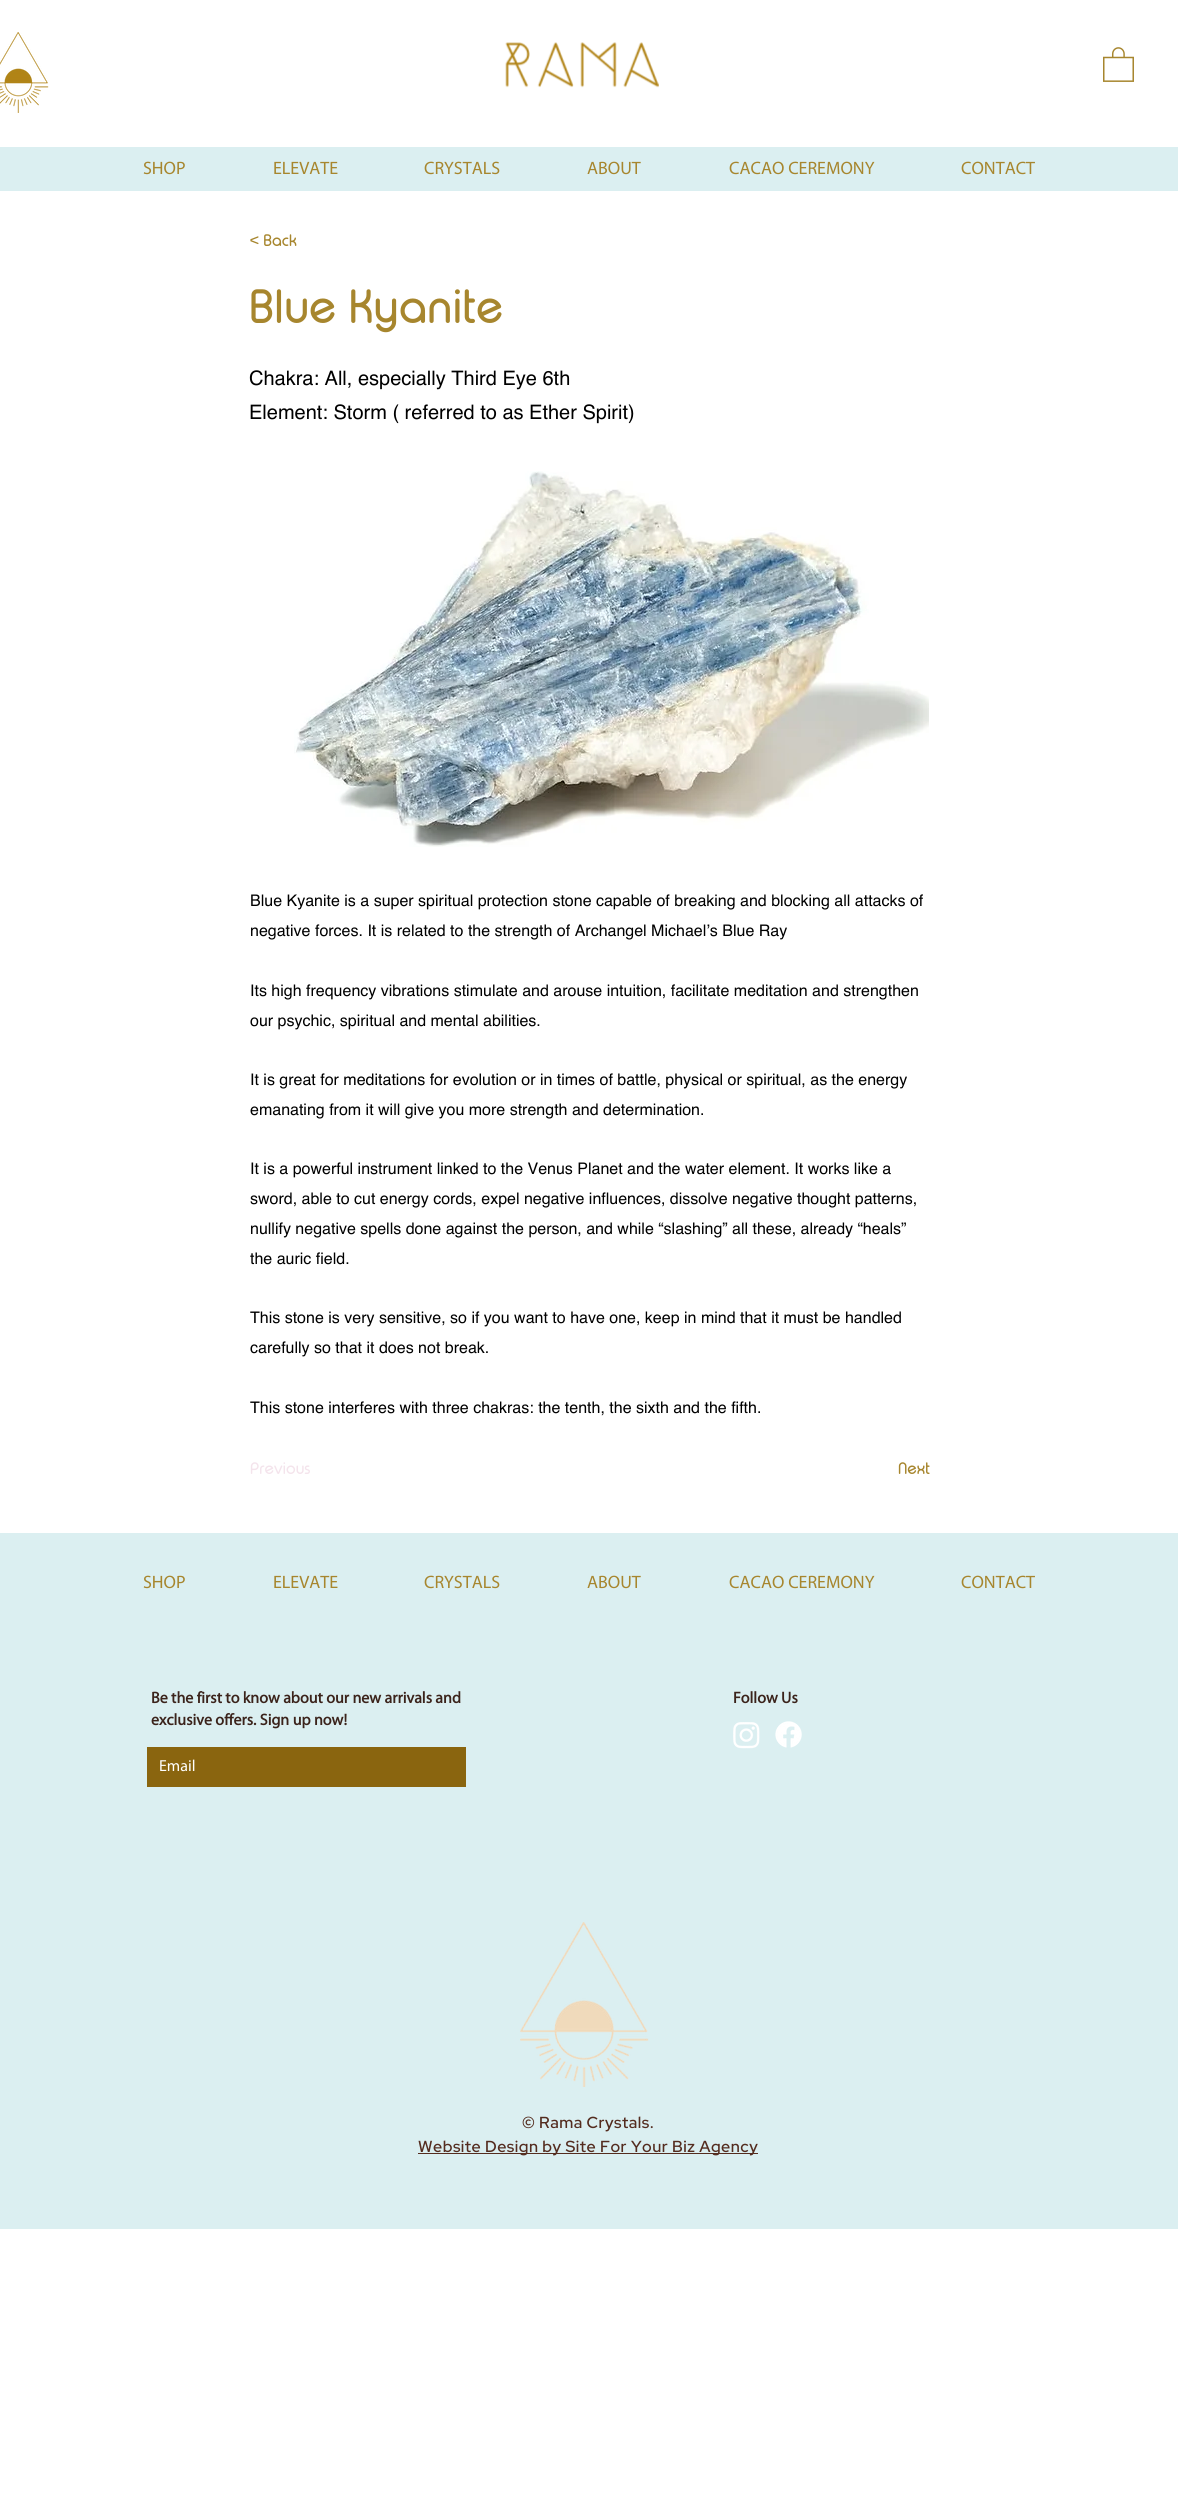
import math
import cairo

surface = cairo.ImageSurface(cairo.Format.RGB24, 1178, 2519)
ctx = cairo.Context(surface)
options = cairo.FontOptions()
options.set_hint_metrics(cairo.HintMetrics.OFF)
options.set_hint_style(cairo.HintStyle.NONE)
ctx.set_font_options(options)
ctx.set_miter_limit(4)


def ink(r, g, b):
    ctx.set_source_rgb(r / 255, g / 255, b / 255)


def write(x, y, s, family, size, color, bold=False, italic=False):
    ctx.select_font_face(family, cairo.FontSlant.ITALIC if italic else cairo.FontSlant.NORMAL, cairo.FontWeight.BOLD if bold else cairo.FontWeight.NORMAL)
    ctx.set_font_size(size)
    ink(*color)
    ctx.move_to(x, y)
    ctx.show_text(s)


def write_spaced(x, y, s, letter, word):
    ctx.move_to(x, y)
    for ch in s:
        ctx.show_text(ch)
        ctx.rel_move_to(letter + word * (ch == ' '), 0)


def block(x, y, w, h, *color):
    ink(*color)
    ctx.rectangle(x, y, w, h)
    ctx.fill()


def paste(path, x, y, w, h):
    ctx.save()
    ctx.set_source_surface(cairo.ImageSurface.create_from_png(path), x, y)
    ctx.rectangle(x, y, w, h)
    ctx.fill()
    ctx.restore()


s1 = dict(family="Myriad", size=18, color=(167, 134, 46))
s2 = dict(family="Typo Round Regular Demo", size=16, color=(167, 134, 46))
s3 = dict(family="Typo Round Regular Demo", size=46, color=(167, 134, 46))
s4 = dict(family="Helvetica", size=20, color=(0, 0, 0))
s5 = dict(family="Helvetica", size=16, color=(0, 0, 0))
s6 = dict(family="Typo Round Regular Demo", size=16, color=(244, 228, 236))
s7 = dict(family="Myriad", size=16, color=(59, 35, 27), bold=True)
s8 = dict(family="Myriad", size=16, color=(255, 255, 255))

ink(255, 255, 255)
ctx.paint()
block(0, 147, 1178, 44, 219, 239, 241)
paste("pic1.png", 0, 32, 49, 81)
paste("pic2.png", 505, 42, 154, 46)
paste("pic3.png", 1103, 47, 31, 35)
write(143, 174, "SHOP", **s1)
write(273, 174, "ELEVATE", **s1)
write(424, 174, "CRYSTALS", **s1)
write(587, 174, "ABOUT", **s1)
write(729, 174, "CACAO CEREMONY", **s1)
write(961, 174, "CONTACT", **s1)
write(250, 246, "< Back", **s2)
write(249, 323, "Blue Kyanite", **s3)
write(249, 385, "Chakra: All, especially Third Eye 6th", **s4)
write(249, 419, "Element: Storm ( referred to as Ether Spirit)", **s4)
paste("pic4.png", 294, 471, 635, 376)
write(250, 906, "Blue Kyanite is a super spiritual protection stone capable of breaking and blocking all attacks of", **s5)
write(250, 936, "negative forces. It is related to the strength of Archangel Michael’s Blue Ray", **s5)
write(250, 996, "Its high frequency vibrations stimulate and arouse intuition, facilitate meditation and strengthen", **s5)
write(250, 1026, "our psychic, spiritual and mental abilities.", **s5)
write(250, 1085, "It is great for meditations for evolution or in times of battle, physical or spiritual, as the energy", **s5)
write(250, 1115, "emanating from it will give you more strength and determination.", **s5)
write(250, 1174, "It is a powerful instrument linked to the Venus Planet and the water element. It works like a", **s5)
write(250, 1204, "sword, able to cut energy cords, expel negative influences, dissolve negative thought patterns,", **s5)
write(250, 1234, "nullify negative spells done against the person, and while “slashing” all these, already “heals”", **s5)
write(250, 1264, "the auric field.", **s5)
write(250, 1323, "This stone is very sensitive, so if you want to have one, keep in mind that it must be handled", **s5)
write(250, 1353, "carefully so that it does not break.", **s5)
write(250, 1413, "This stone interferes with three chakras: the tenth, the sixth and the fifth.", **s5)
write(250, 1474, "Previous", **s6)
write(898, 1474, "Next", **s2)
block(0, 1533, 1178, 696, 219, 239, 241)
write(143, 1588, "SHOP", **s1)
write(273, 1588, "ELEVATE", **s1)
write(424, 1588, "CRYSTALS", **s1)
write(587, 1588, "ABOUT", **s1)
write(729, 1588, "CACAO CEREMONY", **s1)
write(961, 1588, "CONTACT", **s1)
write(151, 1703, "Be the first to know about our new arrivals and", **s7)
write(151, 1725, "exclusive offers. Sign up now!", **s7)
write(733, 1703, "Follow Us", **s7)
paste("pic5.png", 733, 1722, 27, 27)
paste("pic6.png", 775, 1721, 27, 27)
block(147, 1747, 319, 40, 138, 101, 15)
write(159, 1771, "Email", **s8)
paste("pic7.png", 520, 1922, 129, 165)
ctx.select_font_face("Red Hat Display Medium")
ink(84, 44, 31)
write_spaced(522, 2128, "© Rama Crystals.", 0.5, 0)
block(418, 2153, 340, 1, 84, 44, 31)
write_spaced(418, 2152, "Website Design by Site For Your Biz Agency", 0.5, 0)
surface.write_to_png("screenshot.png")
